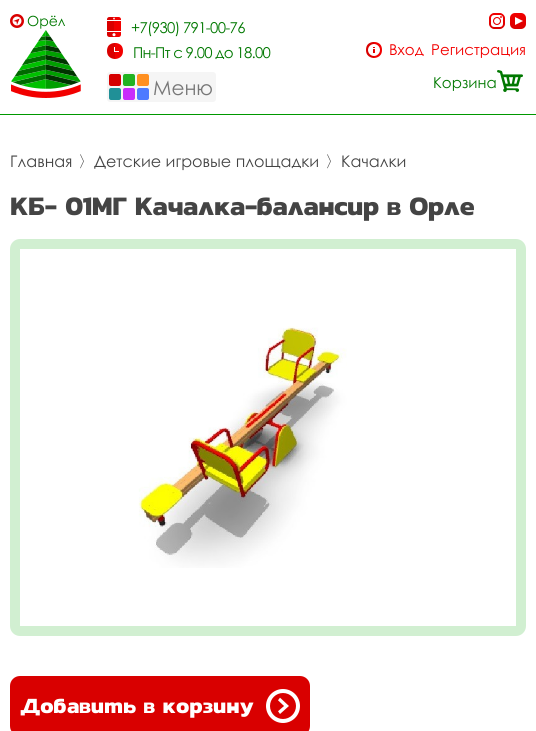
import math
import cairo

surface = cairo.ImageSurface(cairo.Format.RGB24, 536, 731)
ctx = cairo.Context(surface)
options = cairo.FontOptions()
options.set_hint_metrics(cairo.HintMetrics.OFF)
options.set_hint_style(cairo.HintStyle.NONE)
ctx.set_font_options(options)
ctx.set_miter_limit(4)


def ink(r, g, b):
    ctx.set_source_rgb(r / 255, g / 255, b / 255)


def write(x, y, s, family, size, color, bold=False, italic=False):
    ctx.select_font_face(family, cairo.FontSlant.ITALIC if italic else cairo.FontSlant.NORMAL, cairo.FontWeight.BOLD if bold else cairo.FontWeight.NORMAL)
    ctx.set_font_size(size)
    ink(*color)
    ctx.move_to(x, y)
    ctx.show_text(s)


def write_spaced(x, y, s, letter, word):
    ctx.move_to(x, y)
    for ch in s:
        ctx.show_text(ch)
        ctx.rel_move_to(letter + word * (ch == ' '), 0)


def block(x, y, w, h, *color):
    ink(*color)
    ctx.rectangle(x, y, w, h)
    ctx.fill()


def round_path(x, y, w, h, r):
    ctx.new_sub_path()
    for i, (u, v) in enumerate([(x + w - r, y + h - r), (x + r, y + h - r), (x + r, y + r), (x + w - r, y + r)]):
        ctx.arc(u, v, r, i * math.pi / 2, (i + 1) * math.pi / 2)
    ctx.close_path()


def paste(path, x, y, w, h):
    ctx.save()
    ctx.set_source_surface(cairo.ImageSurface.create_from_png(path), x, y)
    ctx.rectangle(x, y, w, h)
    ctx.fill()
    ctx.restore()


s1 = dict(family="Century Gothic", size=14, color=(0, 120, 0))
s2 = dict(family="Century Gothic", size=20, color=(119, 119, 119))
s3 = dict(family="Century Gothic", size=15, color=(242, 0, 0))
s4 = dict(family="Century Gothic", size=15, color=(0, 120, 0))
s5 = dict(family="Century Gothic", size=16, color=(68, 68, 68))
s6 = dict(family="WenQuanYi Zen Hei Medium", size=16, color=(68, 68, 68))
s7 = dict(family="Kanit", size=22, color=(255, 255, 255), bold=True)

ink(255, 255, 255)
ctx.paint()
block(0, 114, 536, 1, 0, 152, 0)
paste("pic1.png", 10, 14, 14, 14)
write(27, 26, "Орёл", **s1)
paste("pic2.png", 11, 30, 70, 68)
paste("pic3.png", 107, 17, 14, 20)
ctx.set_font_size(15)
write_spaced(131, 33, "+7(930) 791-00-76", -0.7, 0)
paste("pic4.png", 107, 43, 16, 16)
write_spaced(133, 58, "Пн-Пт с 9.00 до 18.00", -0.7, 0)
ink(245, 245, 245)
round_path(107, 72, 109, 30, 3)
ctx.fill()
paste("pic5.png", 109, 74, 40, 26)
write(153, 95, "Меню", **s2)
paste("pic6.png", 489, 13, 16, 16)
paste("pic7.png", 510, 13, 16, 16)
paste("pic8.png", 366, 42, 16, 16)
write(389, 55, "Вход", **s3)
write(431, 55, "Регистрация", **s3)
write(433, 88, "Корзина", **s4)
paste("pic9.png", 497, 70, 26, 22)
write(10, 167, "Главная", **s5)
write(78, 167, "〉", **s6)
write(94, 167, "Детские игровые площадки", **s5)
write(325, 167, "〉", **s6)
write(341, 167, "Качалки", **s5)
ctx.select_font_face("Kanit", cairo.FontSlant.NORMAL, cairo.FontWeight.BOLD)
ctx.set_font_size(27)
write_spaced(10, 215, "КБ- 01МГ Качалка-балансир в Орле", -0.55, 0)
round_path(15, 244, 506, 387, 5)
ink(209, 239, 209)
ctx.set_line_width(10)
ctx.stroke()
paste("pic10.png", 138, 326, 209, 242)
ink(217, 0, 0)
round_path(10, 676, 300, 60, 10)
ctx.fill()
write(20, 713, "Добавить в корзину", **s7)
paste("pic11.png", 266, 689, 34, 34)
surface.write_to_png("screenshot.png")
